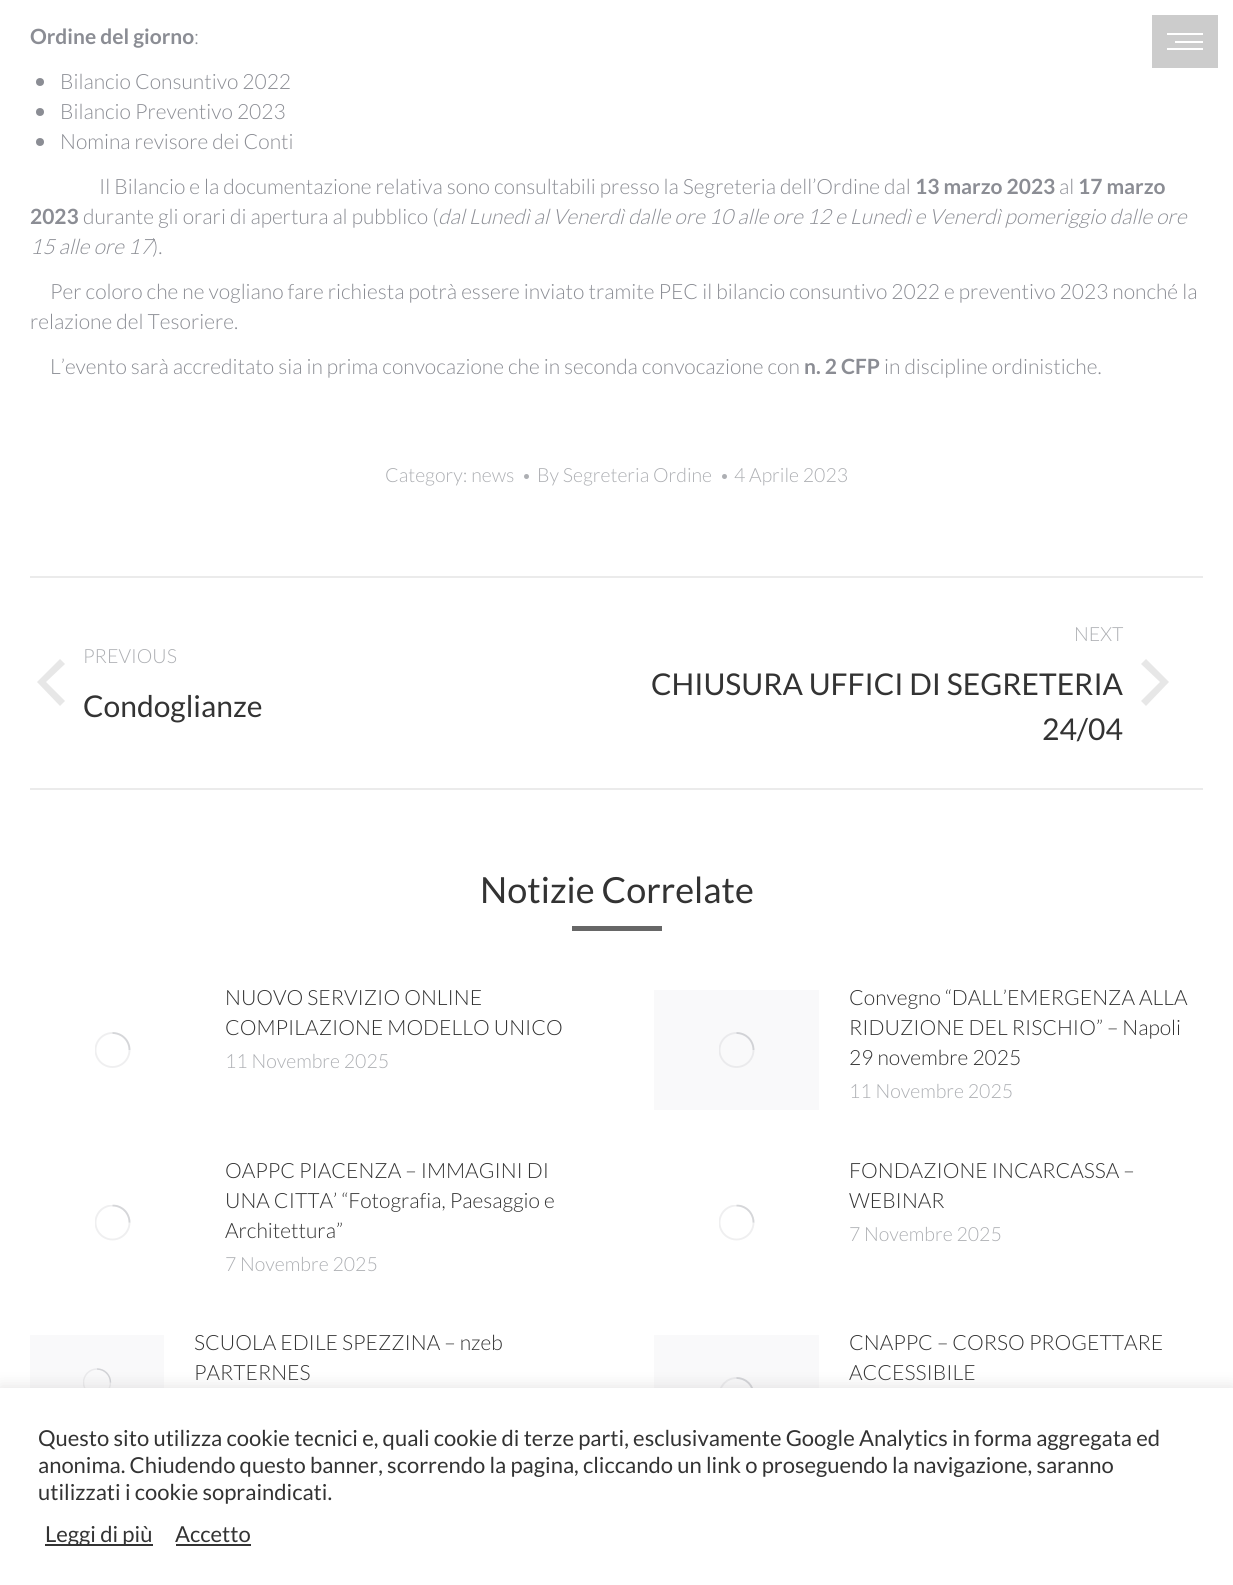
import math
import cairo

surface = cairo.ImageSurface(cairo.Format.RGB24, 1233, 1585)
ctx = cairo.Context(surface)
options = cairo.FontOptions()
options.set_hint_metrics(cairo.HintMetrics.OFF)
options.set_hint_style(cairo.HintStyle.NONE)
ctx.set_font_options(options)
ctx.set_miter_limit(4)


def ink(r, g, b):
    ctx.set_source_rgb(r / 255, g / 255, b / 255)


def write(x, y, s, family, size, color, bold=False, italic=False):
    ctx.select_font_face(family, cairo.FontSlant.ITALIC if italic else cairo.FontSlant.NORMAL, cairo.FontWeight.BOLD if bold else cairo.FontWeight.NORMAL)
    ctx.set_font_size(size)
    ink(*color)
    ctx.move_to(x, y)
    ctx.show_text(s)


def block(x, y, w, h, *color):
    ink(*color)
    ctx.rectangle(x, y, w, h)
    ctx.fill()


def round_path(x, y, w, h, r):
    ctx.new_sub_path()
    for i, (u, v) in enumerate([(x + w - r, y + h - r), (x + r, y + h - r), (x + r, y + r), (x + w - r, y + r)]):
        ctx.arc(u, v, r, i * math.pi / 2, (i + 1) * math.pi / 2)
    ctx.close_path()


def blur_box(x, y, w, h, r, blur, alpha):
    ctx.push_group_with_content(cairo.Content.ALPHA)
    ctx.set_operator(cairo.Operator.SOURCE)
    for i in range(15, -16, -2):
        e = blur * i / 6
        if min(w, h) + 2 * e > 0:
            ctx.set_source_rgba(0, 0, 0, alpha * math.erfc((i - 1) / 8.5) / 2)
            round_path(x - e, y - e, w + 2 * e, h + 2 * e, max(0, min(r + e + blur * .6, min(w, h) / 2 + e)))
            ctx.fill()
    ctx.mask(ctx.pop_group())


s1 = dict(family="Lato", size=21, color=(139, 141, 148), bold=True)
s2 = dict(family="Lato Light", size=21, color=(139, 141, 148))
s3 = dict(family="Lato Light", size=21, color=(139, 141, 148), italic=True)
s4 = dict(family="Lato Light", size=19.5, color=(173, 175, 179))
s5 = dict(family="Lato", size=30, color=(51, 51, 51))
s6 = dict(family="Lato", size=36, color=(51, 51, 51))
s7 = dict(family="Lato Light", size=21, color=(51, 51, 51))
s8 = dict(family="Lato", size=22, color=(51, 51, 51))

ink(255, 255, 255)
ctx.paint()
block(1152, 15, 66, 53, 204, 204, 204)
block(1167, 33, 36, 2, 255, 255, 255)
block(1175, 41, 28, 2, 255, 255, 255)
block(1167, 48, 36, 2, 255, 255, 255)
write(30, 44, "Ordine del giorno", **s1)
write(194, 44, ":", **s2)
ctx.new_path()
ctx.arc(40, 82, 4, 0, 2 * math.pi)
ctx.fill()
write(60, 89, "Bilancio Consuntivo 2022", **s2)
ctx.new_path()
ctx.arc(40, 112, 4, 0, 2 * math.pi)
ctx.fill()
write(60, 119, "Bilancio Preventivo 2023", **s2)
ctx.new_path()
ctx.arc(40, 142, 4, 0, 2 * math.pi)
ctx.fill()
write(60, 149, "Nomina revisore dei Conti", **s2)
write(99, 194, "Il Bilancio e la documentazione relativa sono consultabili presso la Segreteria dell’Ordine dal", **s2)
write(915, 194, "13 marzo 2023", **s1)
write(1059, 194, "al", **s2)
write(1078, 194, "17 marzo", **s1)
write(30, 224, "2023", **s1)
write(83, 224, "durante gli orari di apertura al pubblico (", **s2)
write(438, 224, "dal Lunedì al Venerdì dalle ore 10 alle ore 12 e Lunedì e Venerdì pomeriggio dalle ore", **s3)
write(30, 254, "15 alle ore 17", **s3)
write(152, 254, ").", **s2)
write(50, 299, "Per coloro che ne vogliano fare richiesta potrà essere inviato tramite PEC il bilancio consuntivo 2022 e preventivo 2023 nonché la", **s2)
write(30, 329, "relazione del Tesoriere.", **s2)
write(50, 374, "L’evento sarà accreditato sia in prima convocazione che in seconda convocazione con", **s2)
write(804, 374, "n. 2 CFP", **s1)
write(884, 374, "in discipline ordinistiche.", **s2)
write(385, 482, "Category: news", **s4)
ctx.new_path()
ctx.arc(526.5, 476.5, 2.5, 0, 2 * math.pi)
ctx.fill()
write(537, 482, "By Segreteria Ordine", **s4)
ctx.new_path()
ctx.arc(724.5, 476.5, 2.5, 0, 2 * math.pi)
ctx.fill()
write(734, 482, "4 Aprile 2023", **s4)
block(30, 576, 1173, 2, 235, 235, 235)
block(30, 788, 1173, 2, 235, 235, 235)
write(83, 663, "PREVIOUS", **s4)
ink(231, 231, 231)
ctx.new_path()
ctx.move_to(46, 682)
ctx.line_to(65, 664)
ctx.line_to(60, 659)
ctx.line_to(37, 682)
ctx.line_to(60, 706)
ctx.line_to(65, 701)
ctx.close_path()
ctx.fill()
write(83, 717, "Condoglianze", **s5)
write(1074, 641, "NEXT", **s4)
write(651, 695, "CHIUSURA UFFICI DI SEGRETERIA", **s5)
write(1042, 740, "24/04", **s5)
ink(231, 231, 231)
ctx.new_path()
ctx.move_to(1160, 682)
ctx.line_to(1141, 664)
ctx.line_to(1146, 659)
ctx.line_to(1169, 682)
ctx.line_to(1146, 706)
ctx.line_to(1141, 701)
ctx.close_path()
ctx.fill()
write(480, 903, "Notizie Correlate", **s6)
block(572, 926, 90, 5, 103, 103, 103)
ctx.save()
ctx.rectangle(95, 1032, 36, 36)
ctx.clip()
ctx.arc(112.5, 1050, 17, 0, 2 * math.pi)
ink(239, 239, 240)
ctx.set_line_width(1.9)
ctx.stroke()
ctx.restore()
ctx.new_path()
ctx.move_to(129.5, 1050)
ctx.curve_to(129.5, 1040.5, 122, 1033, 112.5, 1033)
ctx.set_source_rgba(0.545, 0.553, 0.58, 0.25)
ctx.set_line_width(1.9)
ctx.stroke()
write(225, 1005, "NUOVO SERVIZIO ONLINE", **s7)
write(225, 1035, "COMPILAZIONE MODELLO UNICO", **s7)
write(225, 1068, "11 Novembre 2025", **s4)
block(654, 990, 165, 120, 249, 249, 250)
ctx.save()
ctx.rectangle(719, 1032, 36, 36)
ctx.clip()
ctx.arc(736.5, 1050, 17, 0, 2 * math.pi)
ink(234, 234, 236)
ctx.stroke()
ctx.restore()
ctx.new_path()
ctx.move_to(753.5, 1050)
ctx.curve_to(753.5, 1040.5, 746, 1033, 736.5, 1033)
ctx.set_source_rgba(0.545, 0.553, 0.58, 0.25)
ctx.stroke()
write(849, 1005, "Convegno “DALL’EMERGENZA ALLA", **s7)
write(849, 1035, "RIDUZIONE DEL RISCHIO” – Napoli", **s7)
write(849, 1065, "29 novembre 2025", **s7)
write(849, 1098, "11 Novembre 2025", **s4)
ctx.save()
ctx.rectangle(95, 1205, 36, 36)
ctx.clip()
ctx.arc(112.5, 1222.5, 17, 0, 2 * math.pi)
ink(239, 239, 240)
ctx.stroke()
ctx.restore()
ctx.new_path()
ctx.move_to(129.5, 1222.5)
ctx.curve_to(129.5, 1213, 122, 1205.5, 112.5, 1205.5)
ctx.set_source_rgba(0.545, 0.553, 0.58, 0.25)
ctx.stroke()
write(225, 1178, "OAPPC PIACENZA – IMMAGINI DI", **s7)
write(225, 1208, "UNA CITTA’ “Fotografia, Paesaggio e", **s7)
write(225, 1238, "Architettura”", **s7)
write(225, 1271, "7 Novembre 2025", **s4)
ctx.save()
ctx.rectangle(719, 1205, 36, 36)
ctx.clip()
ctx.arc(736.5, 1222.5, 17, 0, 2 * math.pi)
ink(239, 239, 240)
ctx.stroke()
ctx.restore()
ctx.new_path()
ctx.move_to(753.5, 1222.5)
ctx.curve_to(753.5, 1213, 746, 1205.5, 736.5, 1205.5)
ctx.set_source_rgba(0.545, 0.553, 0.58, 0.25)
ctx.stroke()
write(849, 1178, "FONDAZIONE INCARCASSA –", **s7)
write(849, 1208, "WEBINAR", **s7)
write(849, 1241, "7 Novembre 2025", **s4)
block(30, 1335, 134, 53, 249, 249, 250)
ctx.save()
ctx.rectangle(83, 1368, 28, 30)
ctx.clip()
ctx.arc(97, 1382.5, 13.5, 0, 2 * math.pi)
ink(234, 234, 236)
ctx.set_line_width(1.5)
ctx.stroke()
ctx.restore()
ctx.new_path()
ctx.move_to(110.5, 1382.5)
ctx.curve_to(110.5, 1375, 104.5, 1369, 97, 1369)
ctx.set_source_rgba(0.545, 0.553, 0.58, 0.25)
ctx.set_line_width(1.5)
ctx.stroke()
write(194, 1350, "SCUOLA EDILE SPEZZINA – nzeb", **s7)
write(194, 1380, "PARTERNES", **s7)
block(654, 1335, 165, 53, 249, 249, 250)
ctx.new_path()
ctx.arc(736.5, 1395, 17, 0, 2 * math.pi)
ink(234, 234, 236)
ctx.set_line_width(1.9)
ctx.stroke()
ctx.new_path()
ctx.move_to(753.5, 1395)
ctx.curve_to(753.5, 1385.5, 746, 1378, 736.5, 1378)
ctx.set_source_rgba(0.545, 0.553, 0.58, 0.25)
ctx.stroke()
write(849, 1350, "CNAPPC – CORSO PROGETTARE", **s7)
write(849, 1380, "ACCESSIBILE", **s7)
ink(172, 171, 171)
blur_box(0, 1386, 1233, 198, 0, 7.5, 0.3)
block(0, 1388, 1233, 197, 255, 255, 255)
write(38, 1446, "Questo sito utilizza cookie tecnici e, quali cookie di terze parti, esclusivamente Google Analytics in forma aggregata ed", **s8)
write(38, 1473, "anonima. Chiudendo questo banner, scorrendo la pagina, cliccando un link o proseguendo la navigazione, saranno", **s8)
write(38, 1500, "utilizzati i cookie sopraindicati.", **s8)
block(45, 1544, 108, 2, 51, 51, 51)
write(45, 1542, "Leggi di più", **s8)
write(175, 1542, "Accetto", **s8)
block(176, 1544, 75, 2, 51, 51, 51)
surface.write_to_png("screenshot.png")
